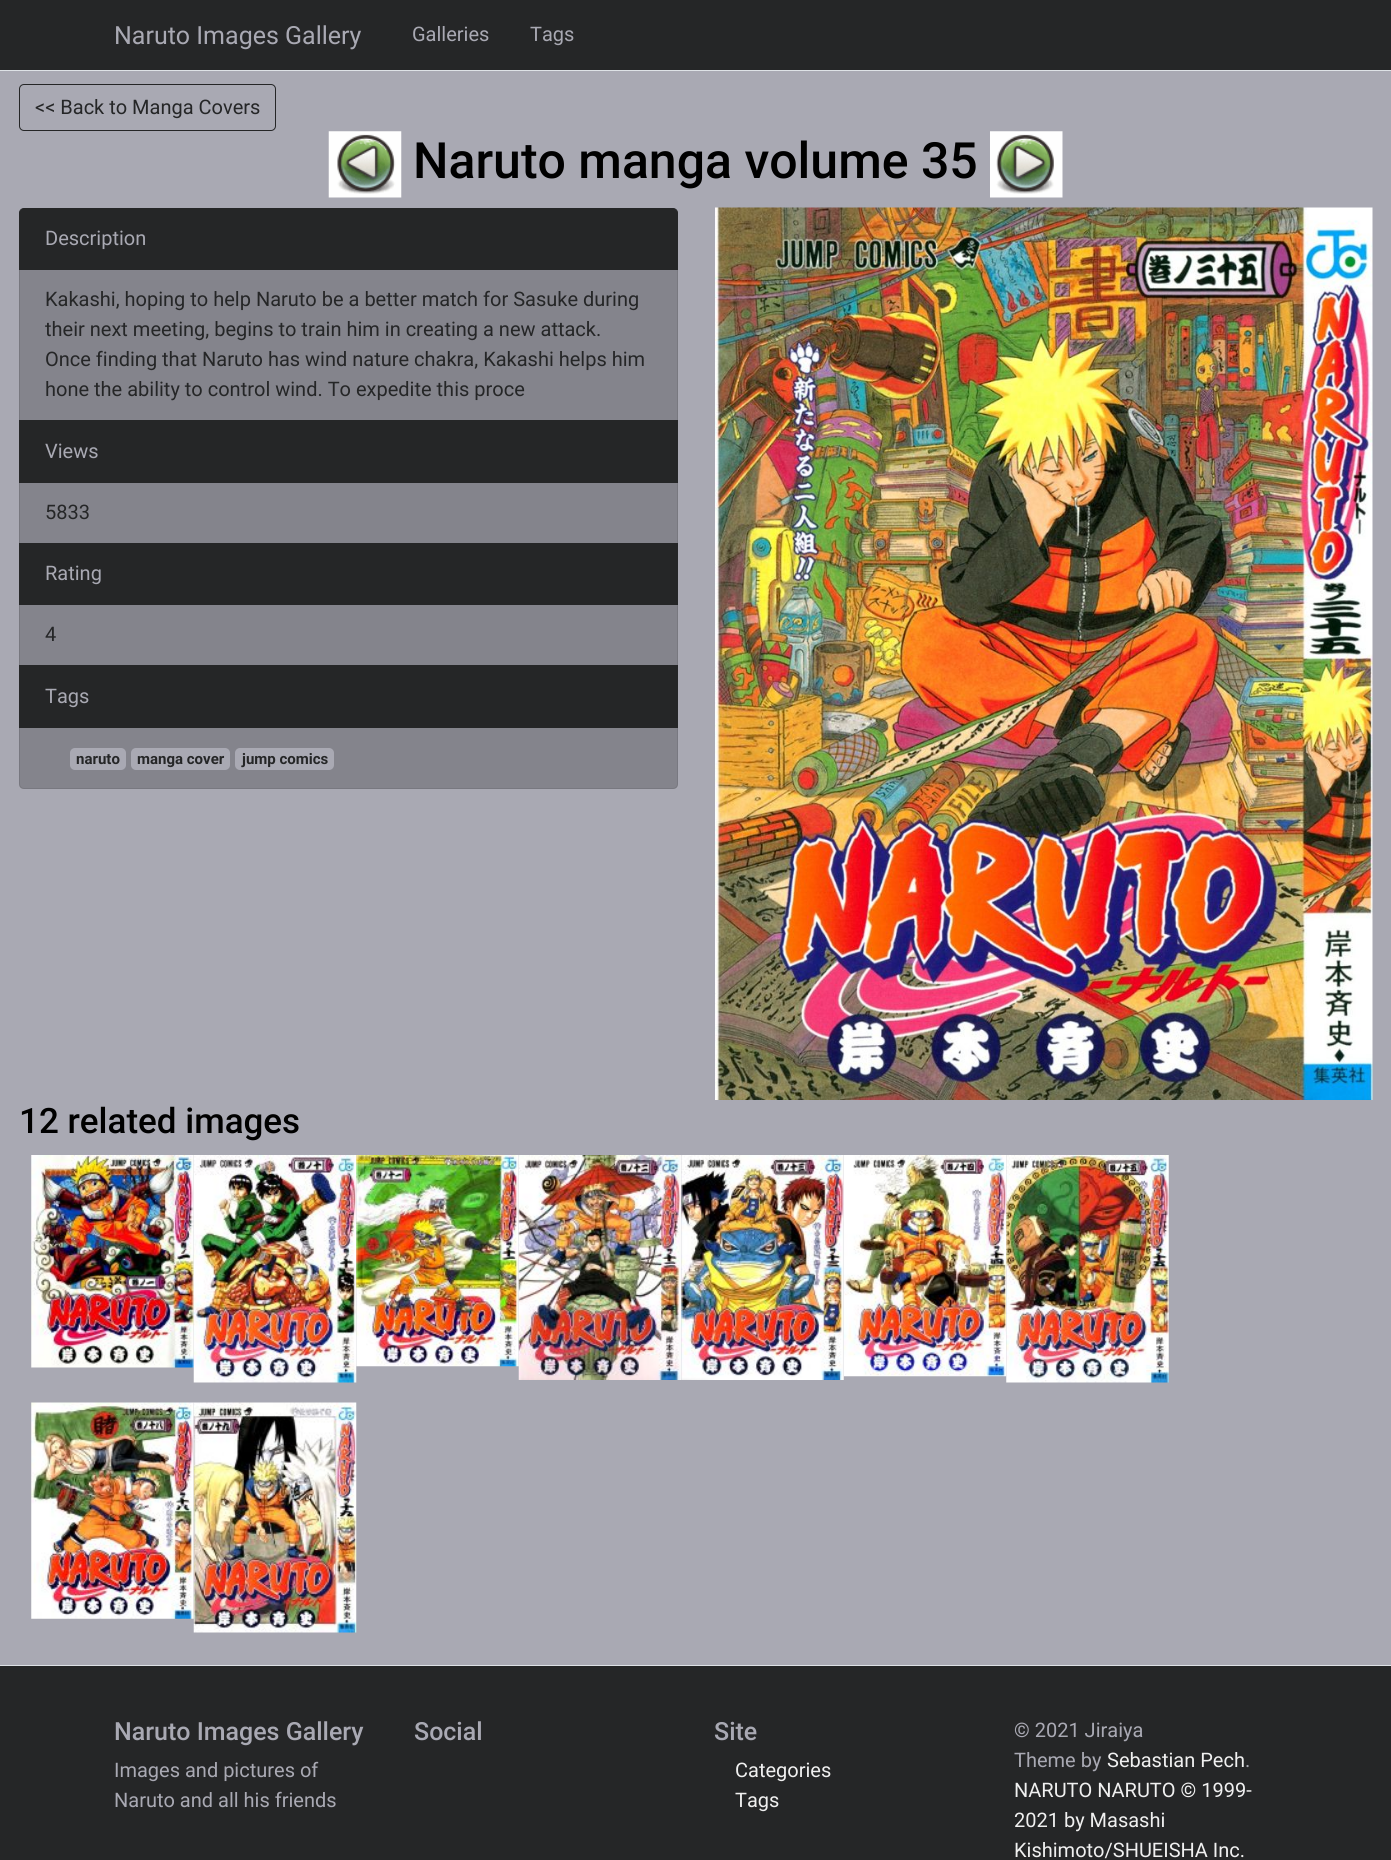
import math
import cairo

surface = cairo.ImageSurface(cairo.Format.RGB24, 1391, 1860)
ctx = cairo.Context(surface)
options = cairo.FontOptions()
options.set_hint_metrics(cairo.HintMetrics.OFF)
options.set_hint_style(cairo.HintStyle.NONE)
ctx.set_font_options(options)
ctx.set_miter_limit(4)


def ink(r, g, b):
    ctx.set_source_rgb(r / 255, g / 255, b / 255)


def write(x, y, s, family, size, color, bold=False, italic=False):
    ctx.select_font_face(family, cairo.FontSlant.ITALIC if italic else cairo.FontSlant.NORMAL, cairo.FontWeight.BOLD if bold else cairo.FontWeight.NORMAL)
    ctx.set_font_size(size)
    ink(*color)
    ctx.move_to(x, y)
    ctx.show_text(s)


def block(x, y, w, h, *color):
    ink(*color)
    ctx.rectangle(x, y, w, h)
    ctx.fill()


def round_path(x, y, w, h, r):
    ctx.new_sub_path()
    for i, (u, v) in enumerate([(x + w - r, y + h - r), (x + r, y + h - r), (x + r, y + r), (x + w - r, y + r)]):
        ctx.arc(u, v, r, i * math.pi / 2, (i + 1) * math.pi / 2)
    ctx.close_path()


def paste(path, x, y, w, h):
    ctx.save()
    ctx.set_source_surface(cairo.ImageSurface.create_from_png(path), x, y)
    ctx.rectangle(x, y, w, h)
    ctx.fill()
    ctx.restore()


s1 = dict(family="Roboto", size=25, color=(169, 169, 179))
s2 = dict(family="Roboto", size=20, color=(169, 169, 179))
s3 = dict(family="Roboto", size=20, color=(37, 38, 39))
s4 = dict(family="Roboto Medium", size=50, color=(0, 0, 0))
s5 = dict(family="Roboto", size=15, color=(37, 38, 39), bold=True)
s6 = dict(family="Roboto Medium", size=35, color=(0, 0, 0))
s7 = dict(family="Roboto Medium", size=25, color=(169, 169, 179))
s8 = dict(family="Roboto", size=20, color=(240, 240, 240))

ink(169, 169, 179)
ctx.paint()
block(0, 0, 1391, 70, 37, 38, 39)
block(0, 70, 1391, 1, 222, 226, 230)
write(114, 44, "Naruto Images Gallery", **s1)
write(412, 41, "Galleries", **s2)
write(530, 41, "Tags", **s2)
round_path(19.5, 84.5, 256, 46, 4.5)
ink(37, 38, 39)
ctx.set_line_width(1)
ctx.stroke()
write(35, 114, "<< Back to Manga Covers", **s3)
paste("pic1.png", 328, 131, 74, 67)
write(413, 178, "Naruto manga volume 35", **s4)
paste("pic2.png", 990, 131, 73, 67)
ink(132, 132, 140)
ctx.rectangle(19.5, 269.5, 658, 151)
ctx.fill_preserve()
ink(120, 120, 127)
ctx.stroke()
ink(37, 38, 39)
ctx.new_path()
ctx.move_to(24, 208.5)
ctx.line_to(673, 208.5)
ctx.curve_to(675.5, 208.5, 677.5, 210.5, 677.5, 213)
ctx.line_to(677.5, 269.5)
ctx.line_to(19.5, 269.5)
ctx.line_to(19.5, 213)
ctx.curve_to(19.5, 210.5, 21.5, 208.5, 24, 208.5)
ctx.close_path()
ctx.fill_preserve()
ctx.stroke()
write(45, 245, "Description", **s2)
write(45, 306, "Kakashi, hoping to help Naruto be a better match for Sasuke during", **s3)
write(45, 336, "their next meeting, begins to train him in creating a new attack.", **s3)
write(45, 366, "Once finding that Naruto has wind nature chakra, Kakashi helps him", **s3)
write(45, 396, "hone the ability to control wind. To expedite this proce", **s3)
block(20, 483, 657, 60, 132, 132, 140)
ctx.rectangle(19.5, 481.5, 658, 62)
ink(120, 120, 127)
ctx.stroke()
block(19, 420, 659, 63, 37, 38, 39)
write(45, 458, "Views", **s2)
write(45, 519, "5833", **s3)
ink(132, 132, 140)
ctx.rectangle(19.5, 604.5, 658, 61)
ctx.fill_preserve()
ink(120, 120, 127)
ctx.stroke()
block(19, 543, 659, 62, 37, 38, 39)
write(45, 580, "Rating", **s2)
write(45, 641, "4", **s3)
ink(132, 132, 140)
ctx.new_path()
ctx.move_to(19, 726)
ctx.line_to(678, 726)
ctx.line_to(678, 784)
ctx.curve_to(678, 787, 676, 789, 673, 789)
ctx.line_to(24, 789)
ctx.curve_to(21, 789, 19, 787, 19, 784)
ctx.close_path()
ctx.fill()
ctx.new_path()
ctx.move_to(19.5, 726.5)
ctx.line_to(677.5, 726.5)
ctx.line_to(677.5, 784)
ctx.curve_to(677.5, 786.5, 675.5, 788.5, 673, 788.5)
ctx.line_to(24, 788.5)
ctx.curve_to(21.5, 788.5, 19.5, 786.5, 19.5, 784)
ctx.close_path()
ctx.set_source_rgba(0.145, 0.149, 0.153, 0.12)
ctx.stroke()
block(19, 665, 659, 63, 37, 38, 39)
write(45, 703, "Tags", **s2)
round_path(70, 748, 56, 22, 5)
ctx.fill()
write(76, 764, "naruto", **s5)
ink(169, 169, 179)
round_path(131, 748, 99, 22, 5)
ctx.fill()
write(137, 764, "manga cover", **s5)
ink(169, 169, 179)
round_path(235, 748, 99, 22, 5)
ctx.fill()
write(242, 764, "jump comics", **s5)
paste("pic3.png", 715, 207, 658, 893)
write(19, 1133, "12 related images", **s6)
paste("pic4.png", 31, 1155, 163, 213)
paste("pic5.png", 193, 1155, 164, 228)
paste("pic6.png", 356, 1155, 163, 212)
paste("pic7.png", 518, 1155, 164, 225)
paste("pic8.png", 681, 1155, 163, 225)
paste("pic9.png", 843, 1155, 164, 222)
paste("pic10.png", 1006, 1155, 163, 228)
paste("pic11.png", 31, 1402, 163, 217)
paste("pic12.png", 193, 1402, 164, 231)
block(0, 1666, 1391, 194, 37, 38, 39)
block(0, 1665, 1391, 1, 222, 226, 230)
write(114, 1740, "Naruto Images Gallery", **s7)
write(114, 1777, "Images and pictures of", **s2)
write(114, 1807, "Naruto and all his friends", **s2)
write(414, 1740, "Social", **s7)
write(714, 1740, "Site", **s7)
write(735, 1777, "Categories", **s8)
write(735, 1807, "Tags", **s8)
write(1014, 1737, "© 2021 Jiraiya", **s2)
write(1014, 1767, "Theme by", **s2)
write(1107, 1767, "Sebastian Pech", **s8)
write(1245, 1767, ".", **s2)
write(1014, 1797, "NARUTO NARUTO © 1999-", **s8)
write(1014, 1827, "2021 by Masashi", **s8)
write(1014, 1857, "Kishimoto/SHUEISHA Inc.", **s8)
surface.write_to_png("screenshot.png")
